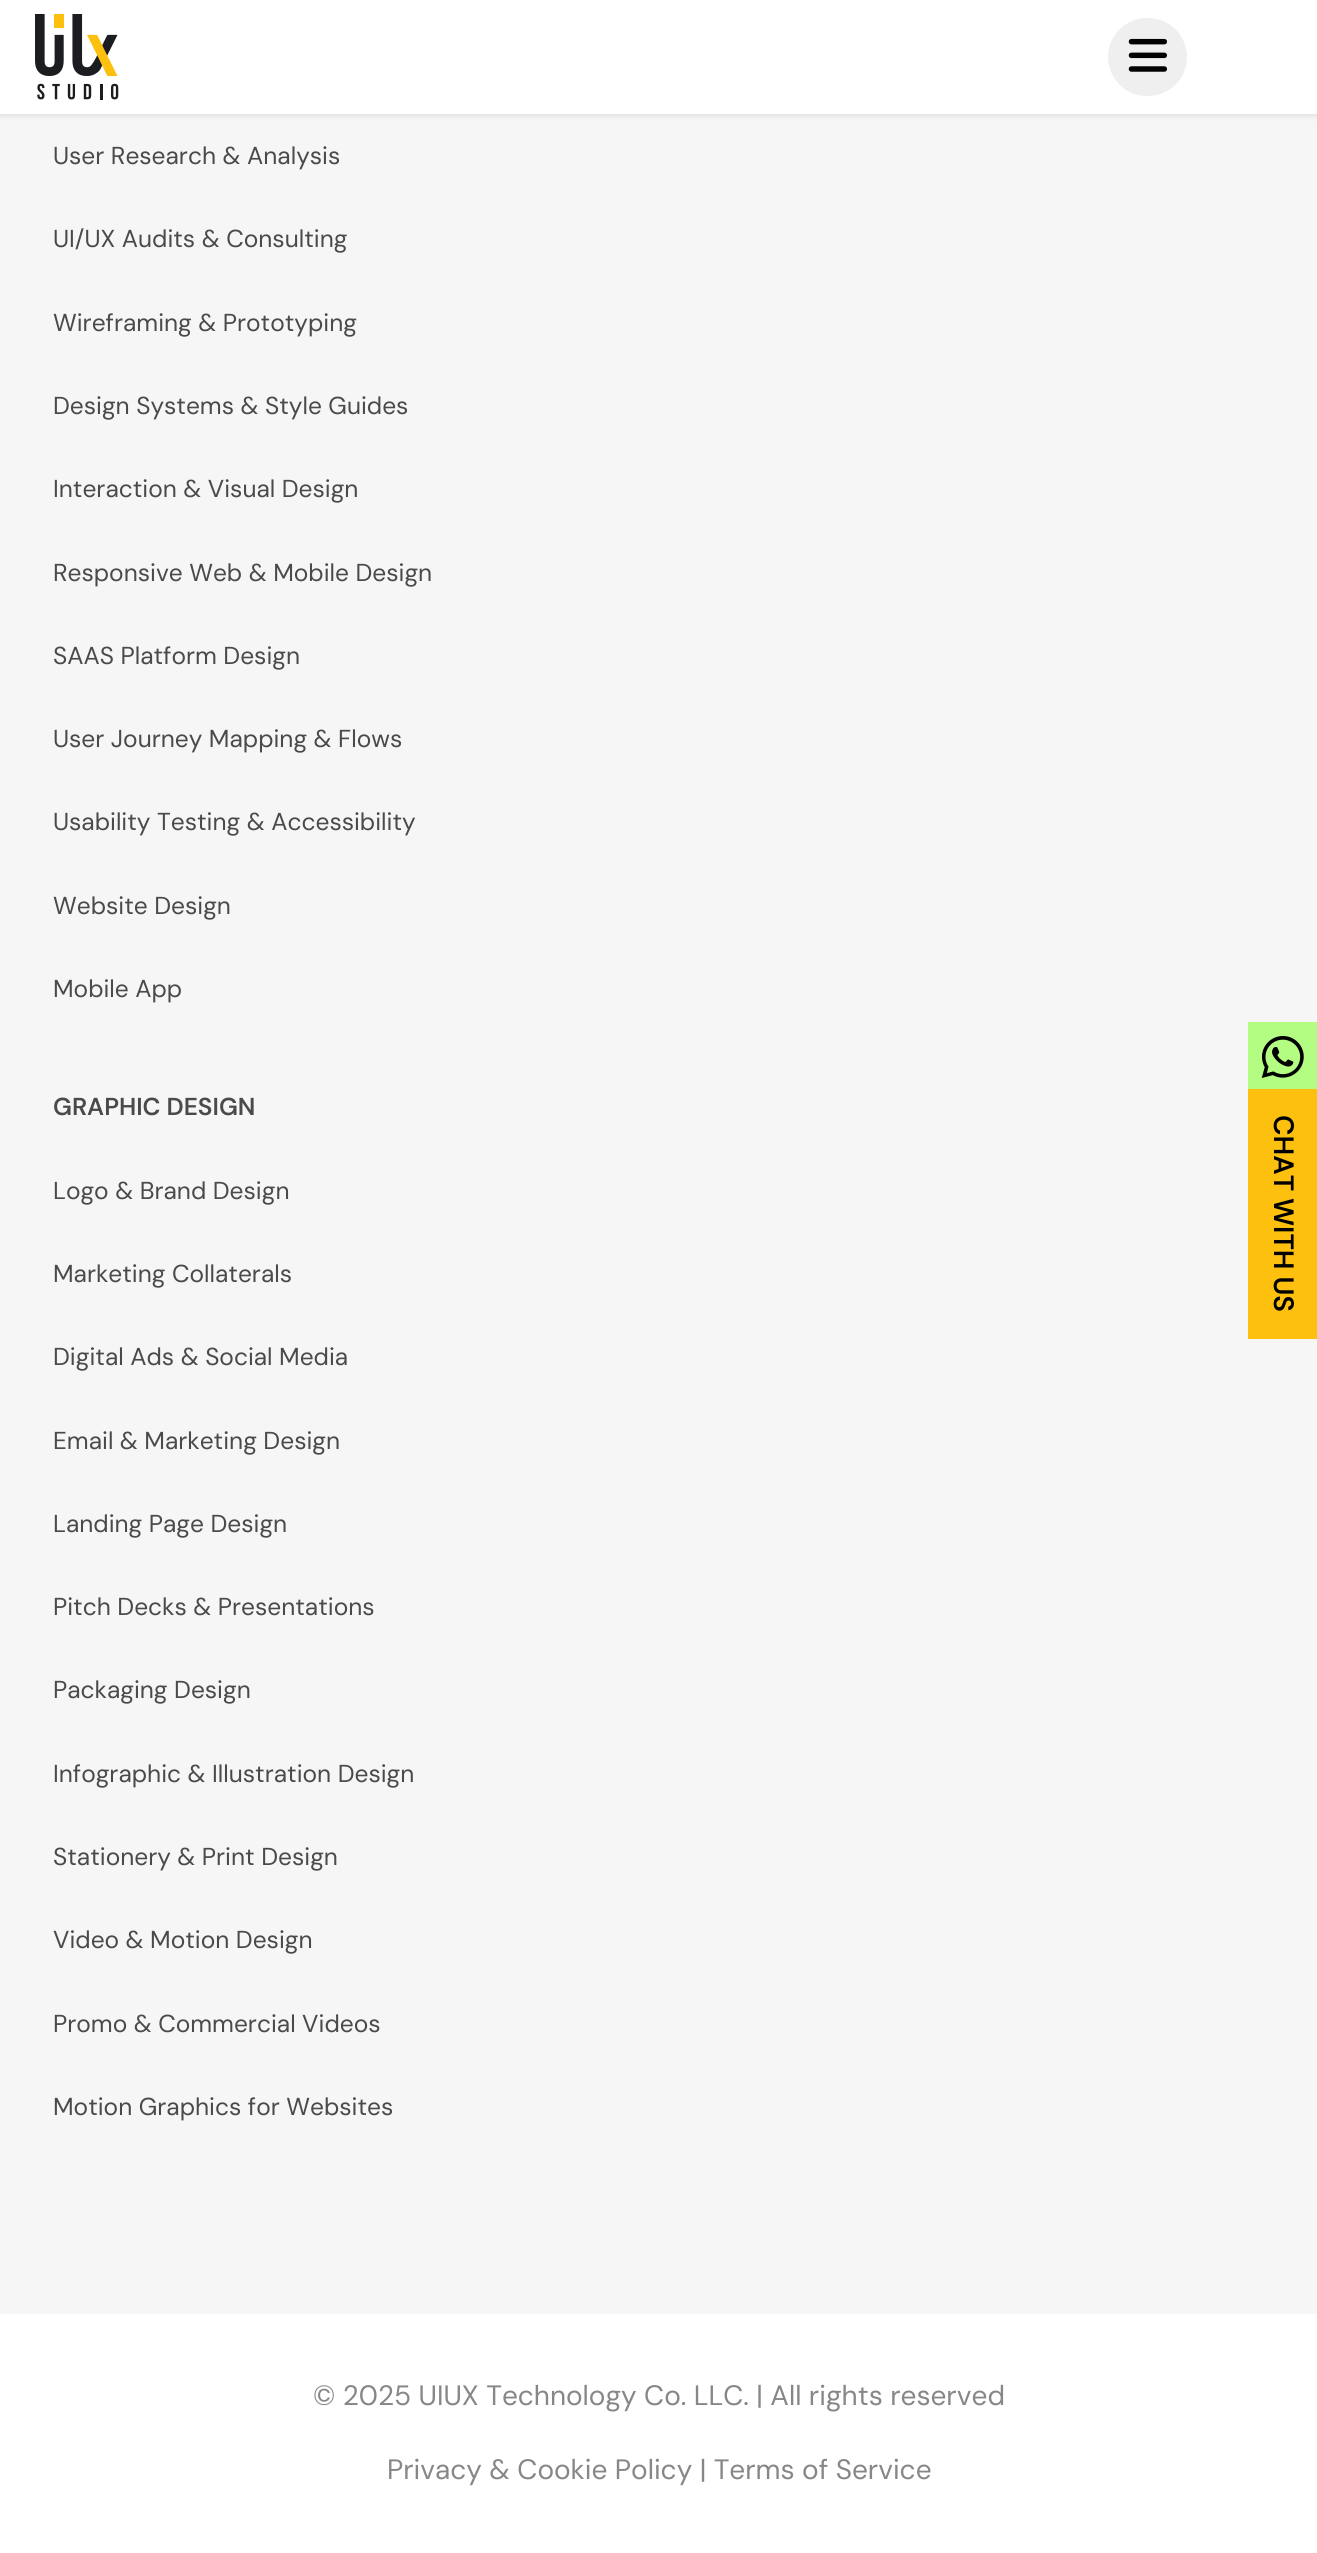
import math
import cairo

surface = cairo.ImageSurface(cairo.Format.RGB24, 1317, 2553)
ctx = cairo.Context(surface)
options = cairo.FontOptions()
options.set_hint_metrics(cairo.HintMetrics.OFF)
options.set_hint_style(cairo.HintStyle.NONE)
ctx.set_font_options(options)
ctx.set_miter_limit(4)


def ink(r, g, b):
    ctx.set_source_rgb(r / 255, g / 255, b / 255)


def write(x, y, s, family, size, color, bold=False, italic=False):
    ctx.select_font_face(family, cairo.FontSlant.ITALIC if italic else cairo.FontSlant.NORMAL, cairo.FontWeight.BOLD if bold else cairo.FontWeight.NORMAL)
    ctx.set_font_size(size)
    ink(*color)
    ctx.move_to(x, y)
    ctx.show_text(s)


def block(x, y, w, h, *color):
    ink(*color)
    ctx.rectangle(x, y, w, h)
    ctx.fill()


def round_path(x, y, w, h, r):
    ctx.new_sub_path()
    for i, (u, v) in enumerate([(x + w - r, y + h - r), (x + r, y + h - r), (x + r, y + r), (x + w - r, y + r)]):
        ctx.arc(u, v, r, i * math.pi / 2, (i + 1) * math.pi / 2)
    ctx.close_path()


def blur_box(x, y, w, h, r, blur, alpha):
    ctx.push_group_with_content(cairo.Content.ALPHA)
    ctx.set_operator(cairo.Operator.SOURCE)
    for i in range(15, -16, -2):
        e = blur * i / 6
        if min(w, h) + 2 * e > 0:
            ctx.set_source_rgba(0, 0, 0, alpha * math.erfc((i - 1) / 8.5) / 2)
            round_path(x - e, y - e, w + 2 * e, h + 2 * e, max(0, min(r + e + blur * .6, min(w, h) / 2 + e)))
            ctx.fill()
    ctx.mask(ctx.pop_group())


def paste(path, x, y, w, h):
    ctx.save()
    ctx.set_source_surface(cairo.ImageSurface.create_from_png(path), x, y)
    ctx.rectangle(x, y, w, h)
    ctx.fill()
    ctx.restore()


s1 = dict(family="DM Sans", size=24.5, color=(74, 74, 74))
s2 = dict(family="DM Sans SemiBold", size=24.5, color=(74, 74, 74))
s3 = dict(family="DM Sans", size=28, color=(135, 135, 135))
s4 = dict(family="DM Sans SemiBold", size=28, color=(0, 0, 0))

ink(255, 255, 255)
ctx.paint()
block(0, 114, 1317, 2200, 246, 246, 246)
ink(0, 0, 0)
blur_box(0, 2, 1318, 114, 0, 2.5, 0.1)
block(0, 0, 1317, 114, 255, 255, 255)
paste("pic1.png", 35, 14, 84, 86)
ink(239, 239, 239)
round_path(1108, 18, 79, 78, 39)
ctx.fill()
paste("pic2.png", 1128, 38, 39, 34)
write(53, 164, "User Research & Analysis", **s1)
write(53, 247, "UI/UX Audits & Consulting", **s1)
write(53, 331, "Wireframing & Prototyping", **s1)
write(53, 414, "Design Systems & Style Guides", **s1)
write(53, 497, "Interaction & Visual Design", **s1)
write(53, 581, "Responsive Web & Mobile Design", **s1)
write(53, 664, "SAAS Platform Design", **s1)
write(53, 747, "User Journey Mapping & Flows", **s1)
write(53, 830, "Usability Testing & Accessibility", **s1)
write(53, 914, "Website Design", **s1)
write(53, 997, "Mobile App", **s1)
write(53, 1115, "GRAPHIC DESIGN", **s2)
write(53, 1199, "Logo & Brand Design", **s1)
write(53, 1282, "Marketing Collaterals", **s1)
write(53, 1365, "Digital Ads & Social Media", **s1)
write(53, 1449, "Email & Marketing Design", **s1)
write(53, 1532, "Landing Page Design", **s1)
write(53, 1615, "Pitch Decks & Presentations", **s1)
write(53, 1698, "Packaging Design", **s1)
write(53, 1782, "Infographic & Illustration Design", **s1)
write(53, 1865, "Stationery & Print Design", **s1)
write(53, 1948, "Video & Motion Design", **s1)
write(53, 2032, "Promo & Commercial Videos", **s1)
write(53, 2115, "Motion Graphics for Websites", **s1)
write(313, 2405, "© 2025 UIUX Technology Co. LLC. | All rights reserved", **s3)
write(387, 2479, "Privacy & Cookie Policy | Terms of Service", **s3)
block(1248, 1022, 69, 67, 180, 253, 131)
paste("pic3.png", 1261, 1036, 43, 42)
block(1248, 1089, 69, 250, 254, 192, 15)
ctx.save()
ctx.translate(1274, 1115)
ctx.rotate(90 * math.pi / 180)
write(0, 0, "CHAT WITH US", **s4)
ctx.restore()
surface.write_to_png("screenshot.png")
